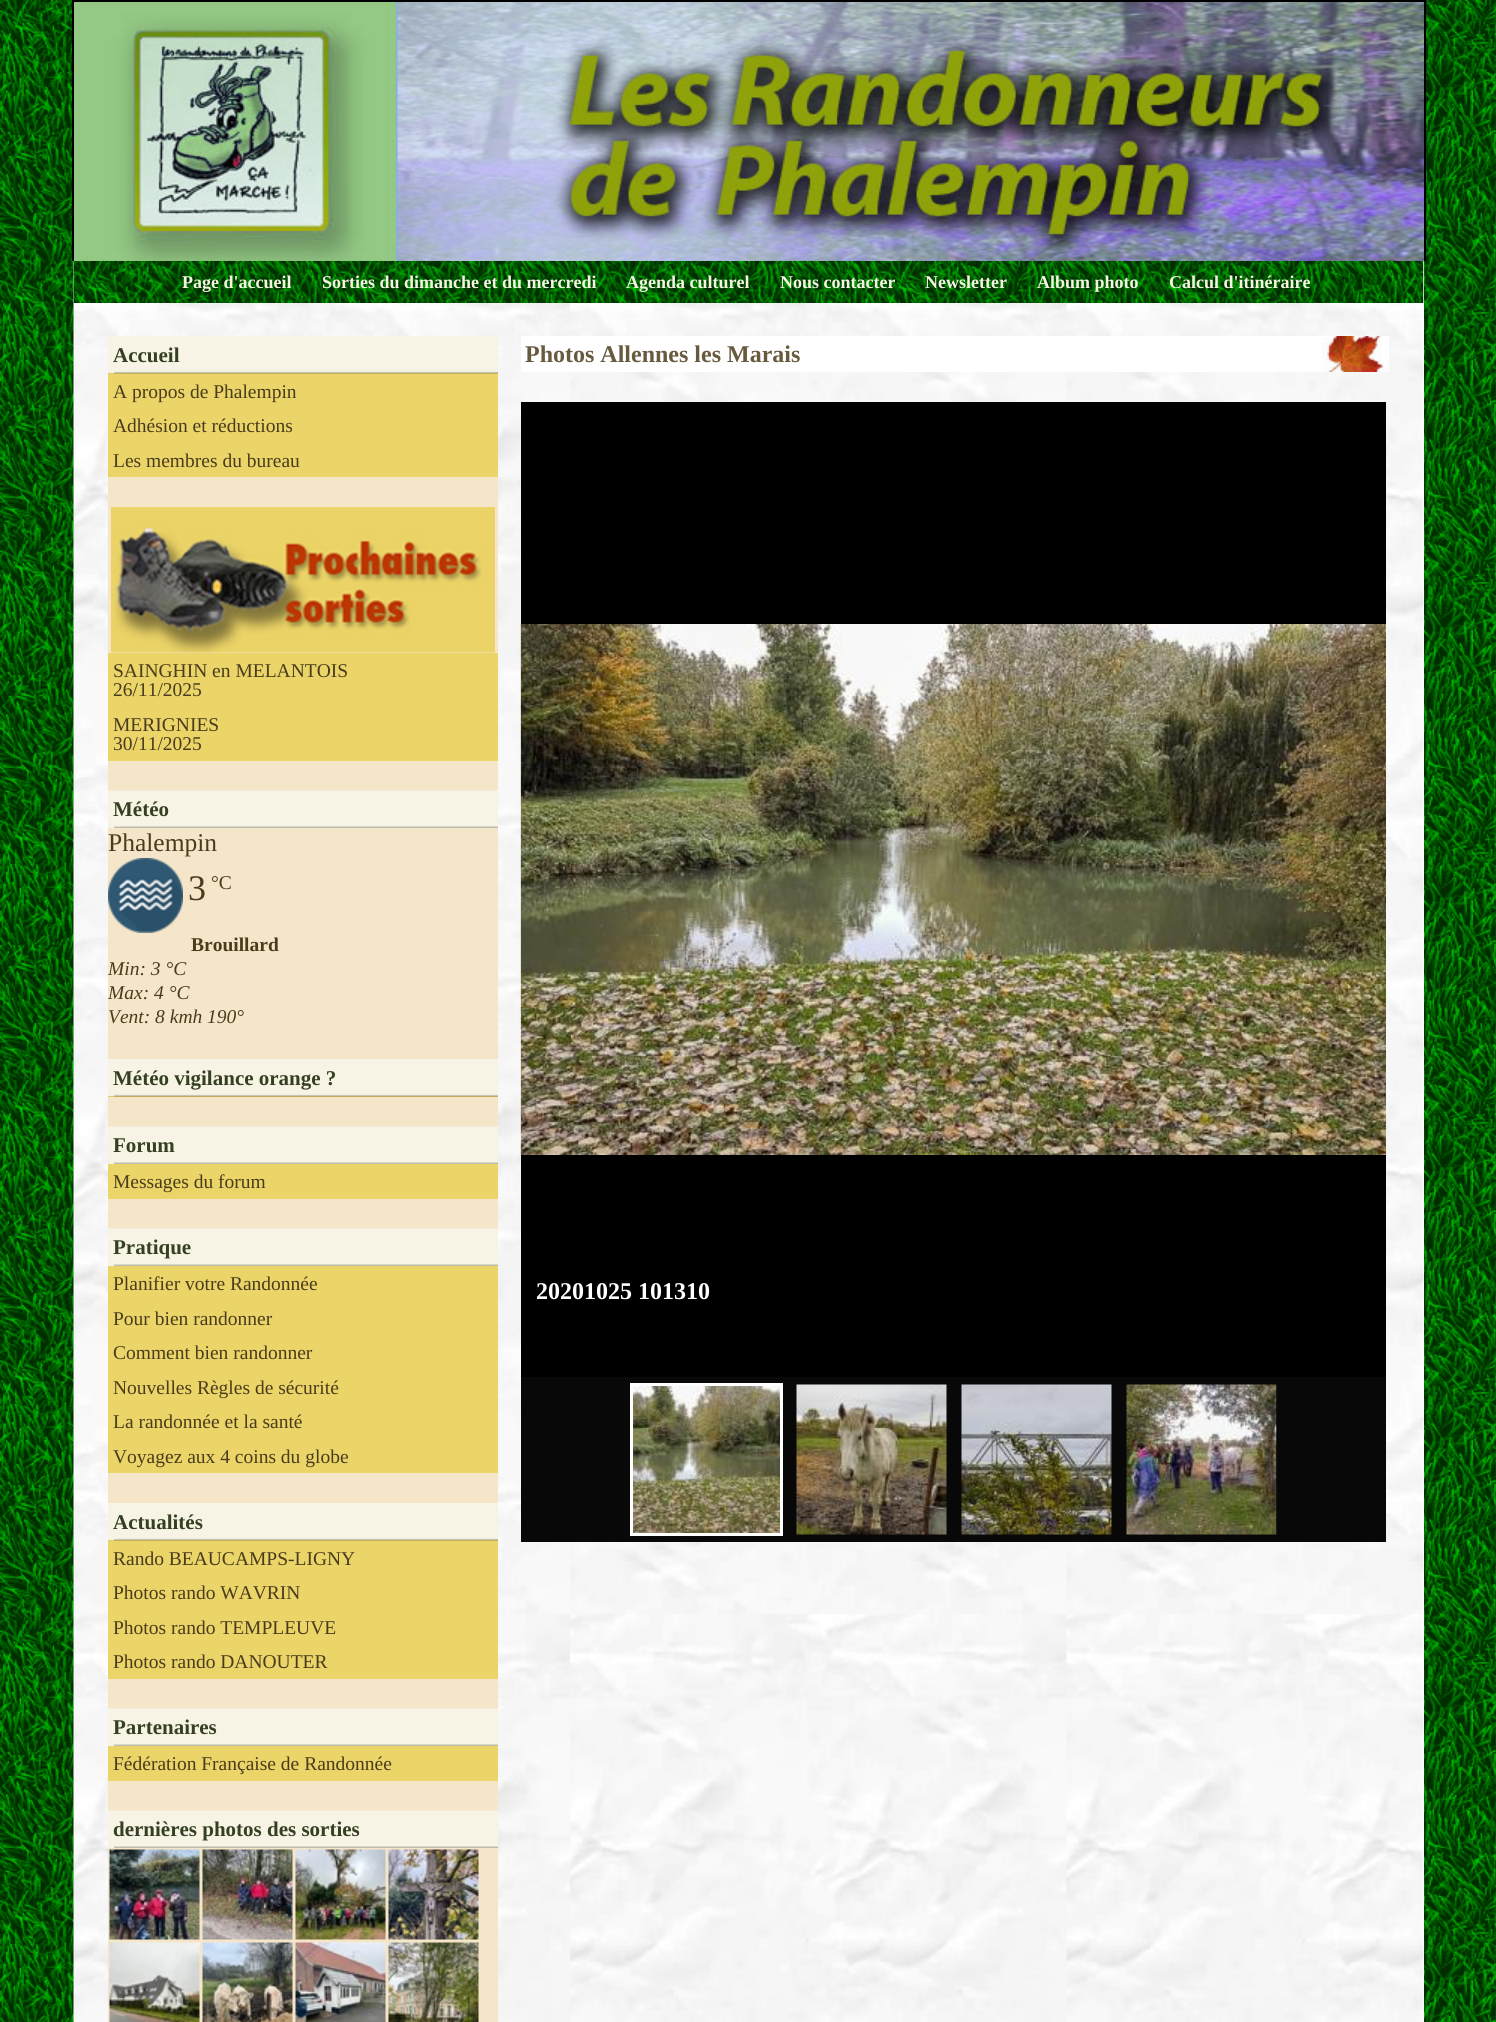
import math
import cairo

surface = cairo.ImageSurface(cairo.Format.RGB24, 1496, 2022)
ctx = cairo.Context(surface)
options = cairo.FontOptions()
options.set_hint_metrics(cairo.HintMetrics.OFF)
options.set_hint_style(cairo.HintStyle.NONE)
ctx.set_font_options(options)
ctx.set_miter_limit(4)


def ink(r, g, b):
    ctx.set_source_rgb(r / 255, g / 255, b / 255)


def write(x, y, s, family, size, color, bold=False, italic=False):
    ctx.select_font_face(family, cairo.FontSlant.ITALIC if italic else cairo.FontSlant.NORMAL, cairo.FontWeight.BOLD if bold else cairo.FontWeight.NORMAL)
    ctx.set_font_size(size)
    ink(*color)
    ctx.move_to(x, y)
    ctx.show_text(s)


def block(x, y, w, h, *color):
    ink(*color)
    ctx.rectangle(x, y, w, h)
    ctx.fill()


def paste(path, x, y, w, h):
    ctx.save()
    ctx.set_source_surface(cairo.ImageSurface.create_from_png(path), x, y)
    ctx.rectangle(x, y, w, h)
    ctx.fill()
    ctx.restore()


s1 = dict(family="Liberation Serif", size=18, color=(245, 245, 226), bold=True)
s2 = dict(family="Liberation Serif", size=21, color=(53, 64, 34), bold=True)
s3 = dict(family="Liberation Serif", size=19.5, color=(73, 60, 28))
s4 = dict(family="Liberation Serif", size=25.5, color=(73, 60, 28))
s5 = dict(family="Liberation Serif", size=36, color=(73, 60, 28))
s6 = dict(family="Liberation Serif", size=19.5, color=(73, 60, 28), bold=True)
s7 = dict(family="Liberation Serif", size=19.5, color=(73, 60, 28), italic=True)
s8 = dict(family="Liberation Serif", size=24, color=(103, 90, 63), bold=True)
s9 = dict(family="Liberation Serif", size=24, color=(255, 255, 255), bold=True)

ink(255, 255, 255)
ctx.paint()
paste("pic1.png", 0, 0, 1496, 2022)
paste("pic2.png", 74, 2, 1350, 259)
block(72, 0, 1353, 2, 0, 0, 0)
block(1424, 0, 2, 261, 0, 0, 0)
block(72, 0, 2, 261, 0, 0, 0)
block(1423, 261, 1, 1761, 255, 255, 255)
paste("pic3.png", 73, 261, 1351, 1761)
paste("pic4.png", 73, 261, 1351, 42)
write(182, 288, "Page d'accueil", **s1)
write(322, 288, "Sorties du dimanche et du mercredi", **s1)
write(626, 288, "Agenda culturel", **s1)
write(780, 288, "Nous contacter", **s1)
write(925, 288, "Newsletter", **s1)
write(1037, 288, "Album photo", **s1)
write(1169, 288, "Calcul d'itinéraire", **s1)
block(108, 477, 390, 1545, 245, 230, 202)
block(108, 373, 390, 1, 200, 159, 12)
paste("pic5.png", 108, 336, 390, 38)
write(113, 362, "Accueil", **s2)
block(108, 374, 390, 103, 235, 212, 104)
write(113, 398, "A propos de Phalempin", **s3)
write(113, 432, "Adhésion et réductions", **s3)
write(113, 467, "Les membres du bureau", **s3)
paste("pic6.png", 111, 507, 384, 146)
block(108, 653, 390, 108, 235, 212, 104)
write(113, 677, "SAINGHIN en MELANTOIS", **s3)
write(113, 696, "26/11/2025", **s3)
write(113, 731, "MERIGNIES", **s3)
write(113, 750, "30/11/2025", **s3)
paste("pic7.png", 108, 790, 390, 38)
write(113, 816, "Météo", **s2)
write(108, 851, "Phalempin", **s4)
paste("pic8.png", 108, 858, 75, 75)
write(188, 900, "3", **s5)
write(211, 889, "°C", **s3)
write(191, 951, "Brouillard", **s6)
write(108, 975, "Min: 3 °C", **s7)
write(108, 999, "Max: 4 °C", **s7)
write(108, 1023, "Vent: 8 kmh 190°", **s7)
block(108, 1096, 390, 1, 200, 159, 12)
paste("pic5.png", 108, 1059, 390, 38)
write(113, 1085, "Météo vigilance orange ?", **s2)
paste("pic7.png", 108, 1126, 390, 38)
write(113, 1152, "Forum", **s2)
block(108, 1164, 390, 35, 235, 212, 104)
write(113, 1188, "Messages du forum", **s3)
paste("pic7.png", 108, 1228, 390, 38)
write(113, 1254, "Pratique", **s2)
block(108, 1266, 390, 207, 235, 212, 104)
write(113, 1290, "Planifier votre Randonnée", **s3)
write(113, 1325, "Pour bien randonner", **s3)
write(113, 1359, "Comment bien randonner", **s3)
write(113, 1394, "Nouvelles Règles de sécurité", **s3)
write(113, 1428, "La randonnée et la santé", **s3)
write(113, 1463, "Voyagez aux 4 coins du globe", **s3)
block(108, 1540, 390, 1, 200, 159, 12)
paste("pic5.png", 108, 1503, 390, 38)
write(113, 1529, "Actualités", **s2)
block(108, 1541, 390, 138, 235, 212, 104)
write(113, 1565, "Rando BEAUCAMPS-LIGNY", **s3)
write(113, 1599, "Photos rando WAVRIN", **s3)
write(113, 1634, "Photos rando TEMPLEUVE", **s3)
write(113, 1668, "Photos rando DANOUTER", **s3)
paste("pic7.png", 108, 1708, 390, 38)
write(113, 1734, "Partenaires", **s2)
block(108, 1746, 390, 35, 235, 212, 104)
write(113, 1770, "Fédération Française de Randonnée", **s3)
paste("pic7.png", 108, 1810, 390, 38)
write(113, 1836, "dernières photos des sorties", **s2)
paste("pic9.png", 109, 1849, 91, 91)
paste("pic10.png", 202, 1849, 91, 91)
paste("pic11.png", 295, 1849, 91, 91)
paste("pic12.png", 388, 1849, 91, 91)
paste("pic13.png", 109, 1942, 91, 80)
paste("pic14.png", 202, 1942, 91, 80)
paste("pic15.png", 295, 1942, 91, 80)
paste("pic16.png", 388, 1942, 91, 80)
paste("pic17.png", 521, 336, 868, 36)
write(525, 362, "Photos Allennes les Marais", **s8)
block(521, 1377, 865, 165, 8, 8, 8)
block(521, 402, 865, 975, 0, 0, 0)
paste("pic18.png", 520, 624, 866, 531)
write(536, 1299, "20201025 101310", **s9)
paste("pic19.png", 633, 1386, 147, 147)
ctx.rectangle(631.5, 1384.5, 150, 150)
ctx.set_line_width(3)
ctx.stroke()
paste("pic20.png", 796, 1384, 151, 151)
paste("pic21.png", 961, 1384, 151, 151)
paste("pic22.png", 1126, 1384, 151, 151)
surface.write_to_png("screenshot.png")
